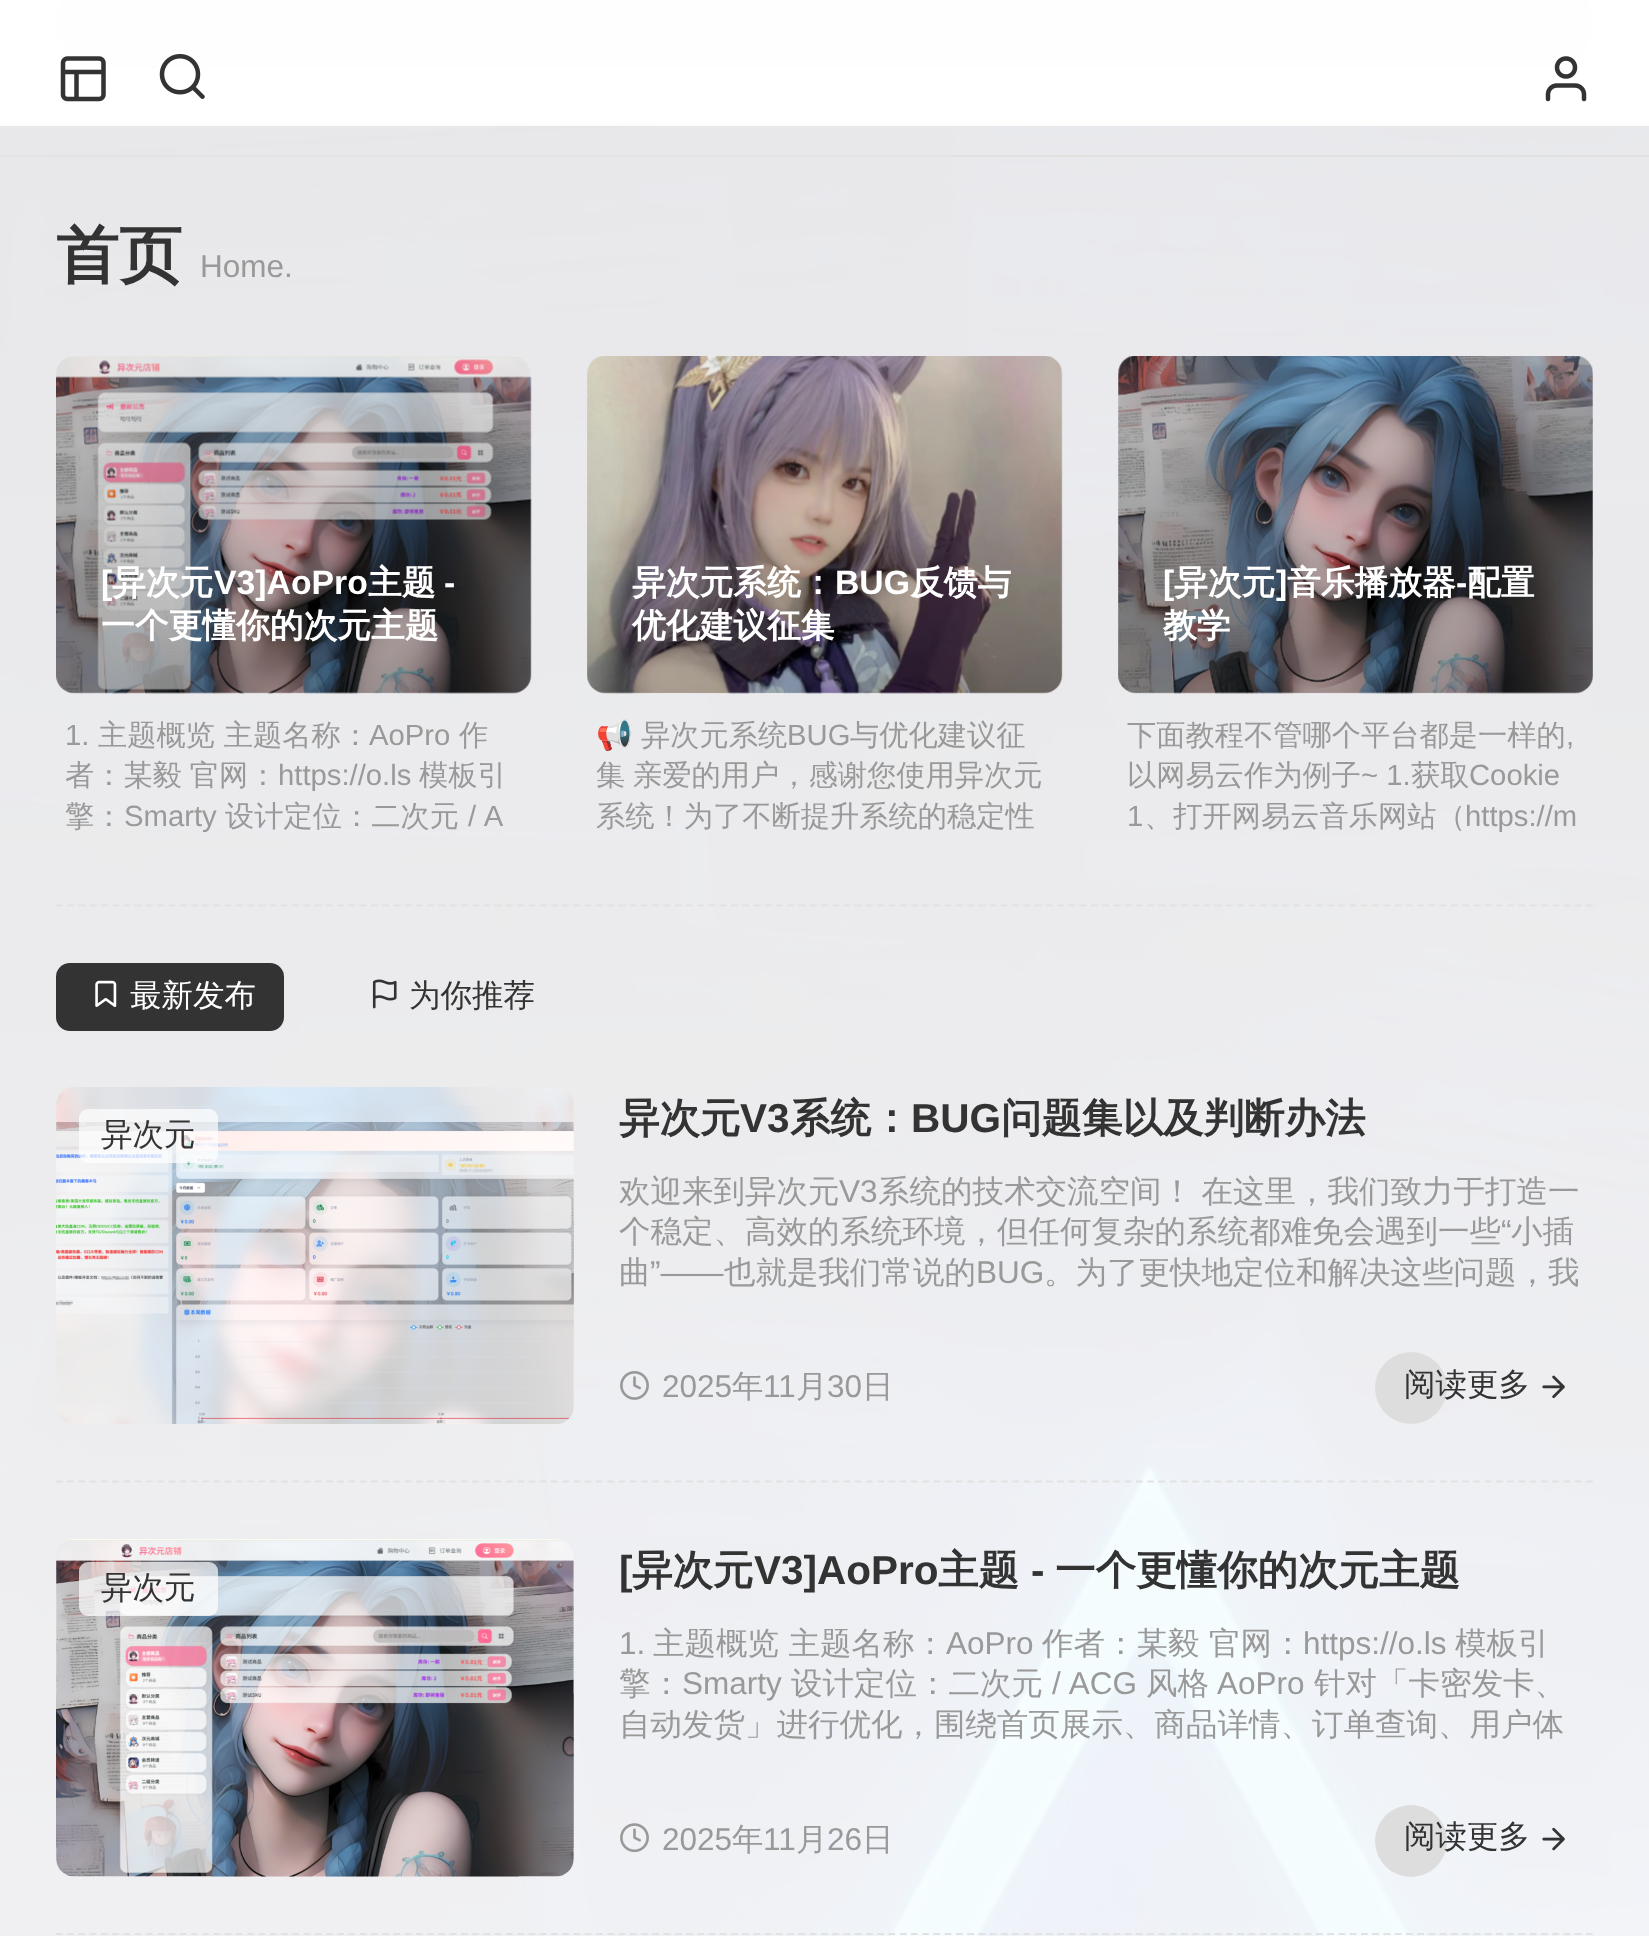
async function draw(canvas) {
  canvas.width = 1649;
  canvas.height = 1936;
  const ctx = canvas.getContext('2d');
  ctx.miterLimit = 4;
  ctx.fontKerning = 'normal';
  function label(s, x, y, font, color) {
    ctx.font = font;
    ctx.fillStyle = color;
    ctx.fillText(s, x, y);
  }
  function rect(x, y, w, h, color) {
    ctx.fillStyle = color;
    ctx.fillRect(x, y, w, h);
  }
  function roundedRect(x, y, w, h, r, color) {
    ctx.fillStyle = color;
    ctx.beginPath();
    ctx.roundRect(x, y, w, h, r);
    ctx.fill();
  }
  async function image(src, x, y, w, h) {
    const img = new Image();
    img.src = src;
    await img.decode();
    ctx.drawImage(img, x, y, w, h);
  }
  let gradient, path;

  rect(0, 0, 1649, 1936, '#fff');
  await image('assets/img1.png', 0, 126, 1649, 1810);
  ctx.fillStyle = '#0000000d';
  ctx.filter = 'blur(11px)';
  ctx.beginPath();
  ctx.rect(0, -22, 1649, 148);
  ctx.fill();
  ctx.filter = 'none';
  rect(0, 0, 1649, 124, '#fff');
  rect(0, 124, 1649, 2, '#e2e2e2');
  roundedRect(56, -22, 1537, 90, 45, '#f3f3f3');
  rect(0, 0, 1649, 158, '#ffffffe6');
  rect(0, 155, 1649, 2, '#e2e2e2');
  await image('assets/img2.png', 60, 56, 46, 46);
  await image('assets/img3.png', 159, 54, 46, 45);
  await image('assets/img4.png', 1545, 56, 42, 46);
  label('首页', 56, 277, 'bold 63px WenQuanYi Zen Hei', '#333');
  label('Home.', 200, 277, '31.5px Liberation Sans', '#999');
  path = new Path2D('M56 905.5H1593');
  ctx.strokeStyle = '#e2e2e2';
  ctx.lineWidth = 2.2;
  ctx.setLineDash([6.75, 4.5]);
  ctx.stroke(path);
  await image('assets/img5.png', 56, 356, 476, 338);
  gradient = ctx.createLinearGradient(294, 693, 294, 356);
  gradient.addColorStop(0, '#0000004d');
  gradient.addColorStop(1, '#0000000d');
  ctx.fillStyle = gradient;
  ctx.beginPath();
  ctx.roundRect(56, 356, 475, 337, 18);
  ctx.fill();
  label('[', 101, 594, 'bold 33.75px Liberation Sans', '#fff');
  label('异次元', 112, 594, 'bold 33.75px WenQuanYi Zen Hei', '#fff');
  label('V3]AoPro', 214, 594, 'bold 33.75px Liberation Sans', '#fff');
  label('主题', 368, 594, 'bold 33.75px WenQuanYi Zen Hei', '#fff');
  label('-', 444, 594, 'bold 33.75px Liberation Sans', '#fff');
  label('一个更懂你的次元主题', 101, 637, 'bold 33.75px WenQuanYi Zen Hei', '#fff');
  label('1.', 65, 745, '29.25px Liberation Sans', '#999');
  label('主题概览 主题名称：', 98, 745, '500 29.25px WenQuanYi Zen Hei', '#999');
  label('AoPro', 369, 745, '29.25px Liberation Sans', '#999');
  label('作', 459, 745, '500 29.25px WenQuanYi Zen Hei', '#999');
  ctx.wordSpacing = '-1px';
  label('者：某毅 官网：', 65, 785, '500 29.25px WenQuanYi Zen Hei', '#999');
  ctx.wordSpacing = '0px';
  label('https://o.ls', 278, 785, '29.25px Liberation Sans', '#999');
  label('模板引', 419, 785, '500 29.25px WenQuanYi Zen Hei', '#999');
  label('擎：', 65, 826, '500 29.25px WenQuanYi Zen Hei', '#999');
  label('Smarty', 124, 826, '29.25px Liberation Sans', '#999');
  label('设计定位：二次元', 225, 826, '500 29.25px WenQuanYi Zen Hei', '#999');
  ctx.wordSpacing = '1px';
  label('/ A', 468, 826, '29.25px Liberation Sans', '#999');
  await image('assets/img6.png', 587, 356, 476, 338);
  gradient = ctx.createLinearGradient(825, 693, 825, 356);
  gradient.addColorStop(0, '#0000004d');
  gradient.addColorStop(1, '#0000000d');
  ctx.fillStyle = gradient;
  ctx.beginPath();
  ctx.roundRect(587, 356, 475, 337, 18);
  ctx.fill();
  ctx.wordSpacing = '0px';
  label('异次元系统：', 632, 594, 'bold 33.75px WenQuanYi Zen Hei', '#fff');
  label('BUG', 835, 594, 'bold 33.75px Liberation Sans', '#fff');
  label('反馈与', 910, 594, 'bold 33.75px WenQuanYi Zen Hei', '#fff');
  label('优化建议征集', 632, 637, 'bold 33.75px WenQuanYi Zen Hei', '#fff');
  label('📢', 596, 745, '29.25px Noto Color Emoji', '#999');
  label('异次元系统', 641, 745, '500 29.25px WenQuanYi Zen Hei', '#999');
  label('BUG', 787, 745, '29.25px Liberation Sans', '#999');
  label('与优化建议征', 850, 745, '500 29.25px WenQuanYi Zen Hei', '#999');
  ctx.wordSpacing = '-1px';
  label('集 亲爱的用户，感谢您使用异次元', 596, 785, '500 29.25px WenQuanYi Zen Hei', '#999');
  ctx.wordSpacing = '0px';
  label('系统！为了不断提升系统的稳定性', 596, 826, '500 29.25px WenQuanYi Zen Hei', '#999');
  await image('assets/img7.png', 1118, 356, 475, 338);
  gradient = ctx.createLinearGradient(1356, 693, 1356, 356);
  gradient.addColorStop(0, '#0000004d');
  gradient.addColorStop(1, '#0000000d');
  ctx.fillStyle = gradient;
  ctx.beginPath();
  ctx.roundRect(1118, 356, 475, 337, 18);
  ctx.fill();
  label('[', 1163, 594, 'bold 33.75px Liberation Sans', '#fff');
  label('异次元', 1174, 594, 'bold 33.75px WenQuanYi Zen Hei', '#fff');
  label(']', 1276, 594, 'bold 33.75px Liberation Sans', '#fff');
  label('音乐播放器', 1287, 594, 'bold 33.75px WenQuanYi Zen Hei', '#fff');
  label('-', 1456, 594, 'bold 33.75px Liberation Sans', '#fff');
  label('配置', 1467, 594, 'bold 33.75px WenQuanYi Zen Hei', '#fff');
  label('教学', 1163, 637, 'bold 33.75px WenQuanYi Zen Hei', '#fff');
  label('下面教程不管哪个平台都是一样的', 1127, 745, '500 29.25px WenQuanYi Zen Hei', '#999');
  label(',', 1566, 745, '29.25px Liberation Sans', '#999');
  label('以网易云作为例子', 1127, 785, '500 29.25px WenQuanYi Zen Hei', '#999');
  label('~ 1.', 1361, 785, '29.25px Liberation Sans', '#999');
  label('获取', 1411, 785, '500 29.25px WenQuanYi Zen Hei', '#999');
  label('Cookie', 1469, 785, '29.25px Liberation Sans', '#999');
  label('1', 1127, 826, '29.25px Liberation Sans', '#999');
  label('、打开网易云音乐网站（', 1144, 826, '500 29.25px WenQuanYi Zen Hei', '#999');
  label('https://m', 1465, 826, '29.25px Liberation Sans', '#999');
  roundedRect(56, 963, 228, 68, 14, '#333');
  await image('assets/img8.png', 95, 980, 22, 27);
  label('最新发布', 130, 1006, '500 31.5px WenQuanYi Zen Hei', '#fff');
  await image('assets/img9.png', 372, 979, 25, 30);
  label('为你推荐', 409, 1006, '500 31.5px WenQuanYi Zen Hei', '#333');
  path = new Path2D('M56 1481.5H1593');
  ctx.stroke(path);
  await image('assets/img10.png', 56, 1087, 518, 337);
  roundedRect(79, 1109, 139, 54, 9, '#ffffffb3');
  label('异次元', 101, 1145, '500 31.5px WenQuanYi Zen Hei', '#333');
  label('异次元', 619, 1132, 'bold 40.5px WenQuanYi Zen Hei', '#333');
  label('V3', 740, 1132, 'bold 40.5px Liberation Sans', '#333');
  label('系统：', 790, 1132, 'bold 40.5px WenQuanYi Zen Hei', '#333');
  label('BUG', 911, 1132, 'bold 40.5px Liberation Sans', '#333');
  label('问题集以及判断办法', 1001, 1132, 'bold 40.5px WenQuanYi Zen Hei', '#333');
  label('欢迎来到异次元', 619, 1202, '500 31.5px WenQuanYi Zen Hei', '#999');
  label('V3', 839, 1202, '31.5px Liberation Sans', '#999');
  ctx.wordSpacing = '-1px';
  label('系统的技术交流空间！ 在这里，我们致力于打造一', 878, 1202, '500 31.5px WenQuanYi Zen Hei', '#999');
  ctx.wordSpacing = '0px';
  label('个稳定、高效的系统环境，但任何复杂的系统都难免会遇到一些', 619, 1242, '500 31.5px WenQuanYi Zen Hei', '#999');
  label('“', 1501, 1242, '31.5px Liberation Sans', '#999');
  label('小插', 1511, 1242, '500 31.5px WenQuanYi Zen Hei', '#999');
  label('曲', 619, 1283, '500 31.5px WenQuanYi Zen Hei', '#999');
  label('”——', 650, 1283, '31.5px Liberation Sans', '#999');
  label('也就是我们常说的', 724, 1283, '500 31.5px WenQuanYi Zen Hei', '#999');
  label('BUG', 976, 1283, '31.5px Liberation Sans', '#999');
  label('。为了更快地定位和解决这些问题，我', 1044, 1283, '500 31.5px WenQuanYi Zen Hei', '#999');
  await image('assets/img11.png', 620, 1371, 29, 29);
  label('2025', 662, 1397, '31.5px Liberation Sans', '#999');
  label('年', 732, 1397, '500 31.5px WenQuanYi Zen Hei', '#999');
  label('11', 763, 1397, '31.5px Liberation Sans', '#999');
  label('月', 796, 1397, '500 31.5px WenQuanYi Zen Hei', '#999');
  label('30', 827, 1397, '31.5px Liberation Sans', '#999');
  label('日', 862, 1397, '500 31.5px WenQuanYi Zen Hei', '#999');
  ctx.fillStyle = '#ddd';
  ctx.beginPath();
  ctx.arc(1411, 1388, 36, 0, 2 * Math.PI);
  ctx.fill();
  label('阅读更多', 1404, 1395, '500 31.5px WenQuanYi Zen Hei', '#333');
  await image('assets/img12.png', 1542, 1375, 23, 24);
  path = new Path2D('M56 1934H1593');
  ctx.stroke(path);
  await image('assets/img13.png', 56, 1539, 518, 338);
  roundedRect(79, 1562, 139, 54, 9, '#ffffffb3');
  label('异次元', 101, 1598, '500 31.5px WenQuanYi Zen Hei', '#333');
  label('[', 619, 1584, 'bold 40.5px Liberation Sans', '#333');
  label('异次元', 632, 1584, 'bold 40.5px WenQuanYi Zen Hei', '#333');
  label('V3]AoPro', 754, 1584, 'bold 40.5px Liberation Sans', '#333');
  label('主题', 938, 1584, 'bold 40.5px WenQuanYi Zen Hei', '#333');
  label('-', 1031, 1584, 'bold 40.5px Liberation Sans', '#333');
  label('一个更懂你的次元主题', 1055, 1584, 'bold 40.5px WenQuanYi Zen Hei', '#333');
  label('1.', 619, 1654, '31.5px Liberation Sans', '#999');
  label('主题概览 主题名称：', 653, 1654, '500 31.5px WenQuanYi Zen Hei', '#999');
  label('AoPro', 946, 1654, '31.5px Liberation Sans', '#999');
  label('作者：某毅 官网：', 1042, 1654, '500 31.5px WenQuanYi Zen Hei', '#999');
  label('https://o.ls', 1303, 1654, '31.5px Liberation Sans', '#999');
  label('模板引', 1455, 1654, '500 31.5px WenQuanYi Zen Hei', '#999');
  label('擎：', 619, 1694, '500 31.5px WenQuanYi Zen Hei', '#999');
  label('Smarty', 682, 1694, '31.5px Liberation Sans', '#999');
  label('设计定位：二次元', 791, 1694, '500 31.5px WenQuanYi Zen Hei', '#999');
  ctx.wordSpacing = '1px';
  label('/ ACG', 1052, 1694, '31.5px Liberation Sans', '#999');
  ctx.wordSpacing = '0px';
  label('风格', 1146, 1694, '500 31.5px WenQuanYi Zen Hei', '#999');
  label('AoPro', 1217, 1694, '31.5px Liberation Sans', '#999');
  label('针对「卡密发卡、', 1314, 1694, '500 31.5px WenQuanYi Zen Hei', '#999');
  label('自动发货」进行优化，围绕首页展示、商品详情、订单查询、用户体', 619, 1735, '500 31.5px WenQuanYi Zen Hei', '#999');
  await image('assets/img14.png', 620, 1823, 29, 30);
  label('2025', 662, 1850, '31.5px Liberation Sans', '#999');
  label('年', 732, 1850, '500 31.5px WenQuanYi Zen Hei', '#999');
  label('11', 763, 1850, '31.5px Liberation Sans', '#999');
  label('月', 796, 1850, '500 31.5px WenQuanYi Zen Hei', '#999');
  label('26', 827, 1850, '31.5px Liberation Sans', '#999');
  label('日', 862, 1850, '500 31.5px WenQuanYi Zen Hei', '#999');
  ctx.fillStyle = '#ddd';
  ctx.beginPath();
  ctx.arc(1411, 1841, 36, 0, 2 * Math.PI);
  ctx.fill();
  label('阅读更多', 1404, 1847, '500 31.5px WenQuanYi Zen Hei', '#333');
  await image('assets/img15.png', 1542, 1827, 23, 24);
}

draw(document.querySelector('canvas'));
